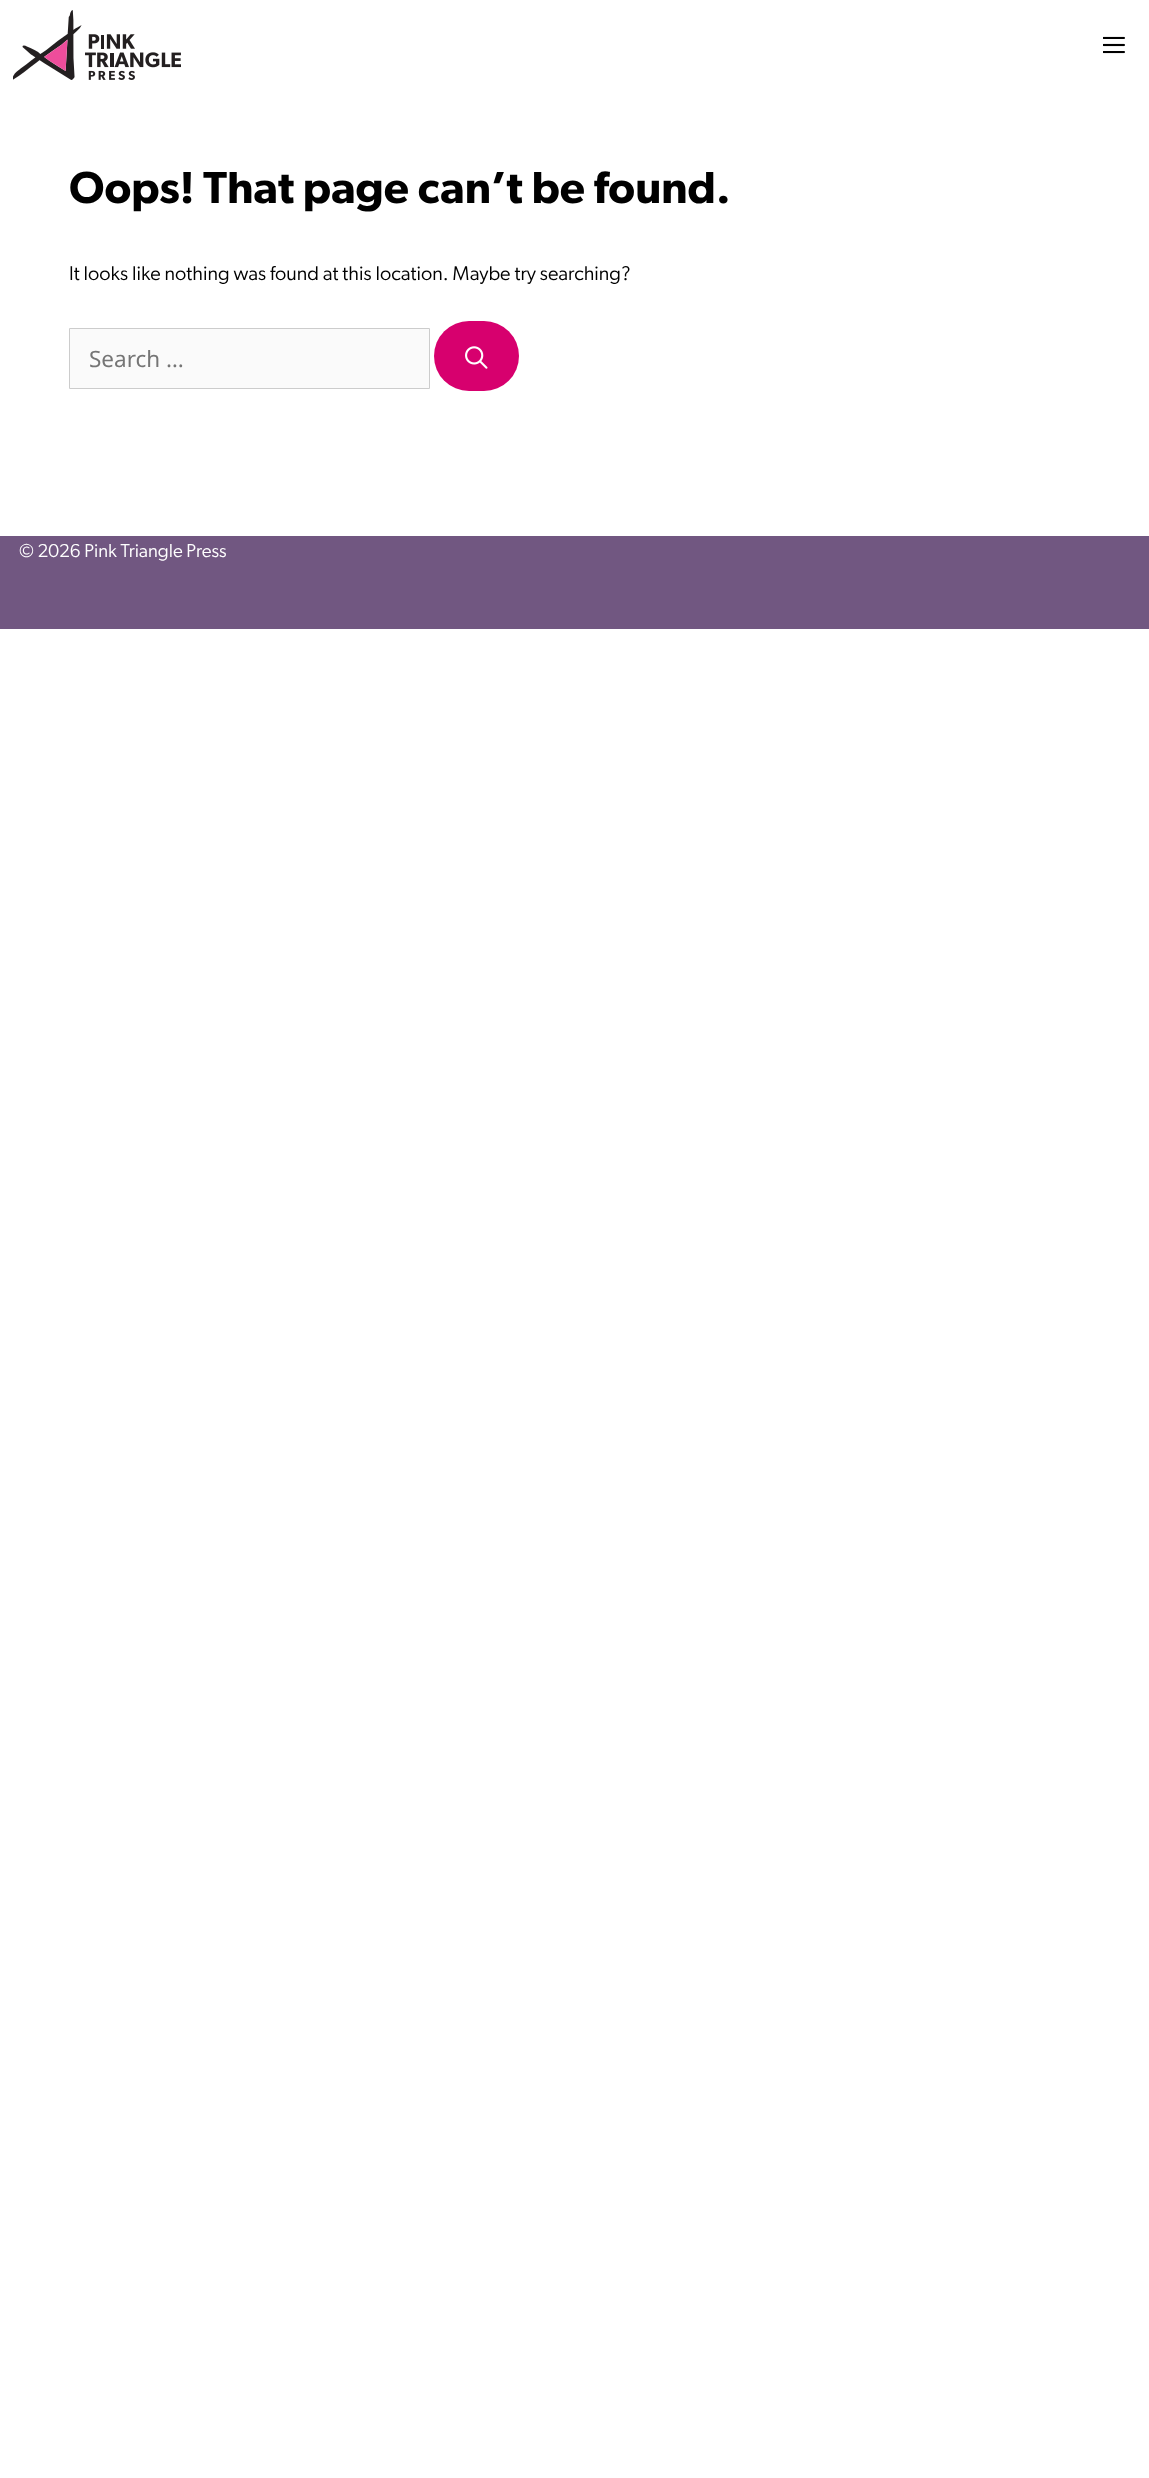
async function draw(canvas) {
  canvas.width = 1149;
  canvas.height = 2478;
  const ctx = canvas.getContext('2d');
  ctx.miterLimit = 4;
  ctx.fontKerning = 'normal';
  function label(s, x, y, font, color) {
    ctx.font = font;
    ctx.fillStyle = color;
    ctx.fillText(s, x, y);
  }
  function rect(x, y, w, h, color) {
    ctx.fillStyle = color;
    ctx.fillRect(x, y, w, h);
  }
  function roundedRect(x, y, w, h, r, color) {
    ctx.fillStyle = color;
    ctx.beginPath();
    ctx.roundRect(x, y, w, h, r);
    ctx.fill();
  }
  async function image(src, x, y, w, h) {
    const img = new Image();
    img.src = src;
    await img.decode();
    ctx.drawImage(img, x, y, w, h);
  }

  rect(0, 0, 1149, 2478, '#fff');
  await image('assets/img1.png', 13, 10, 168, 70);
  await image('assets/img2.png', 1103, 36, 22, 18);
  label('Oops! That page can’t be found.', 69, 203, '600 45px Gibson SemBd', '#000');
  label('It looks like nothing was found at this location. Maybe try searching?', 69, 280, '20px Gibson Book', '#000');
  ctx.fillStyle = '#fafafa';
  ctx.beginPath();
  ctx.rect(69.5, 328.5, 360, 60);
  ctx.fill();
  ctx.strokeStyle = '#ccc';
  ctx.stroke();
  label('Search …', 89, 367, '22.5px Noto Sans', '#757575');
  roundedRect(434, 321, 85, 70, 35, '#d7006e');
  await image('assets/img3.png', 465, 346, 23, 23);
  rect(0, 536, 1149, 93, '#715781');
  label('© 2026 Pink Triangle Press', 19, 557, '18.75px Gibson Book', '#fff');
}

draw(document.querySelector('canvas'));
